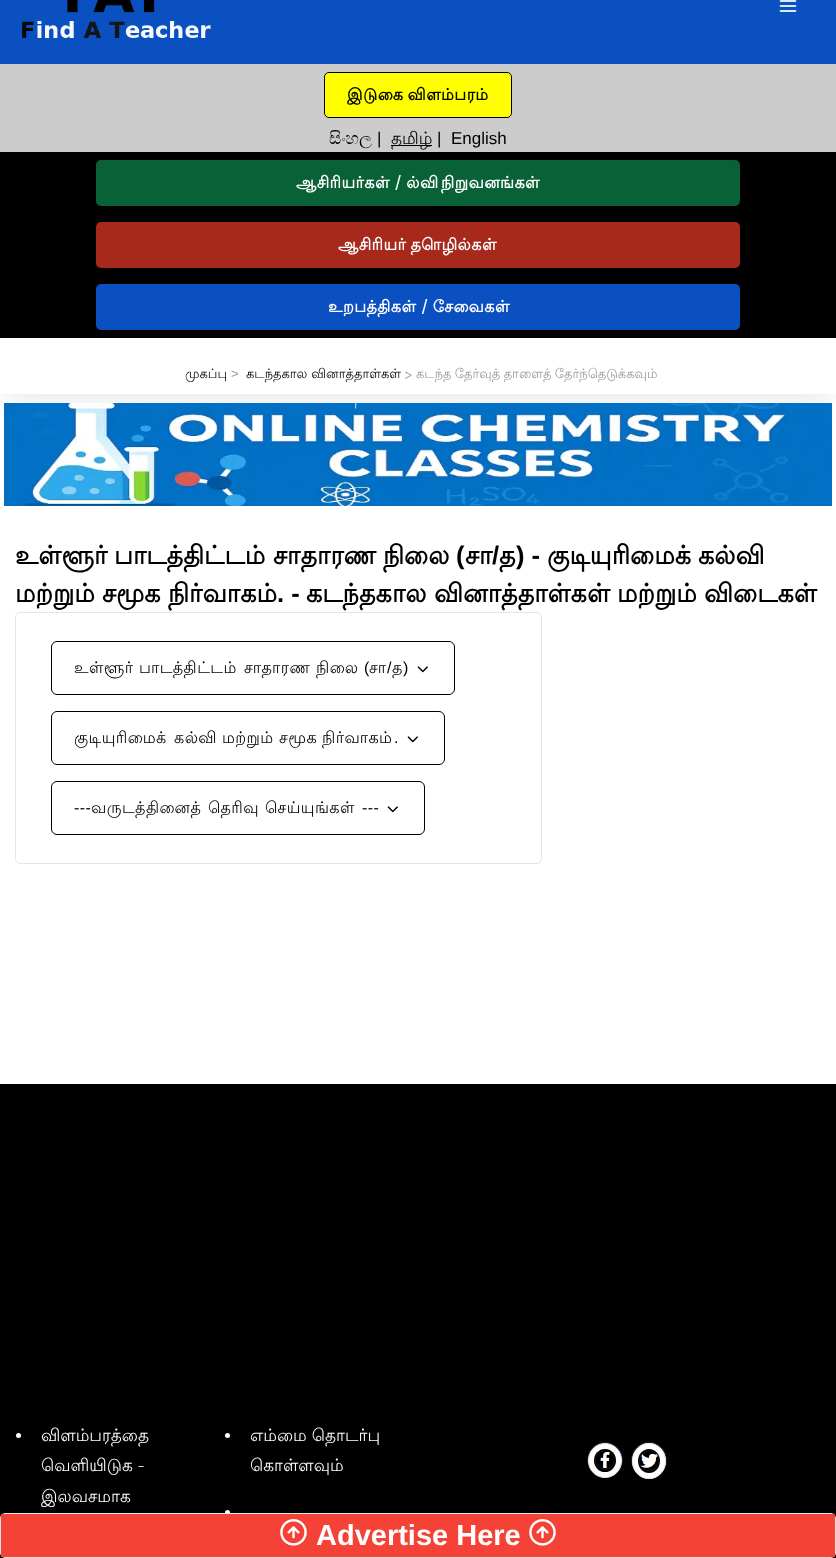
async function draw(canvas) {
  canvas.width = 836;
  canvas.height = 1558;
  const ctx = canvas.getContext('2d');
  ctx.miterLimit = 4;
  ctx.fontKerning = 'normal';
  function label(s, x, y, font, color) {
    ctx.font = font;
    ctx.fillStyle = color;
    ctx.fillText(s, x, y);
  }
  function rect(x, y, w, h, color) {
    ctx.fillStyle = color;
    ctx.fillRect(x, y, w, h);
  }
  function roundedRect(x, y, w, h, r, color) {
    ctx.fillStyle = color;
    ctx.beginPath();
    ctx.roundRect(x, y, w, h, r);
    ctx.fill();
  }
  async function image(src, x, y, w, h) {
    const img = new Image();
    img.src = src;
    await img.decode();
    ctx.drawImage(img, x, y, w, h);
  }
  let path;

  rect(0, 0, 836, 1558, '#fff');
  rect(0, 0, 836, 64, '#0b50c1');
  await image('assets/img1.png', 22, 0, 189, 38);
  await image('assets/img2.png', 779, 0, 18, 12);
  rect(0, 64, 836, 88, '#ccc');
  ctx.fillStyle = '#ff0';
  ctx.beginPath();
  ctx.roundRect(324.5, 72.5, 187, 45, 4.5);
  ctx.fill();
  ctx.strokeStyle = '#000';
  ctx.stroke();
  ctx.letterSpacing = '0.4px';
  ctx.wordSpacing = '-1px';
  label('இடுகை விளம்பரம்', 347, 100, 'bold 16px Lohit Tamil', '#000');
  ctx.letterSpacing = '0px';
  ctx.wordSpacing = '0px';
  label('සිංහල', 329, 144, '17px FreeSerif', '#000');
  label('|', 377, 144, '17px Liberation Sans', '#000');
  rect(391, 145, 41, 1, '#000');
  label('தமிழ்', 391, 144, '17px Lohit Tamil', '#000');
  label('|', 437, 144, '17px Liberation Sans', '#000');
  label('English', 451, 144, '17px Liberation Sans', '#000');
  rect(0, 152, 836, 186, '#000');
  roundedRect(96, 160, 644, 46, 5, '#096237');
  ctx.letterSpacing = '0.4px';
  ctx.wordSpacing = '-1px';
  label('ஆசிரியர்கள் / ல்வி', 296, 188, 'bold 16px Lohit Tamil', '#fff');
  ctx.wordSpacing = '0px';
  label('நிறுவனங்கள்', 441, 188, 'bold 16px Lohit Tamil', '#fff');
  roundedRect(96, 222, 644, 46, 5, '#a6291c');
  ctx.wordSpacing = '-1px';
  label('ஆசிரியர் தொழில்கள்', 338, 250, 'bold 16px Lohit Tamil', '#fff');
  ctx.save();
  path = new Path2D('M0 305H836V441H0ZM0 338H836V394H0Z');
  ctx.clip(path, 'evenodd');
  ctx.fillStyle = '#0000001f';
  ctx.filter = 'blur(15px)';
  ctx.beginPath();
  ctx.rect(6, 351, 824, 44);
  ctx.fill();
  ctx.filter = 'none';
  ctx.restore();
  roundedRect(96, 284, 644, 46, 5, '#0b50c1');
  label('உறபத்திகள் / சேவைகள்', 328, 312, 'bold 16px Lohit Tamil', '#fff');
  ctx.letterSpacing = '0px';
  ctx.wordSpacing = '0px';
  label('முகப்பு', 185, 378, '13px Lohit Tamil', '#000');
  label('>', 231, 378, '13px Liberation Sans', '#999');
  label('கடந்தகால வினாத்தாள்கள்', 246, 378, '13px Lohit Tamil', '#000');
  ctx.wordSpacing = '-0.5px';
  label('> கடந்த தேர்வுத் தாளைத் தேர்ந்தெடுக்கவும்', 404, 378, '13px Lohit Tamil', '#999');
  await image('assets/img3.png', 4, 403, 828, 103);
  ctx.wordSpacing = '0px';
  label('உள்ளூர்', 15, 564, 'bold 25.5px Lohit Tamil', '#000');
  label('பாடத்திட்டம்', 114, 564, 'bold 25.5px Lohit Tamil', '#000');
  label('சாதாரண', 273, 564, 'bold 25.5px Lohit Tamil', '#000');
  label('நிலை', 383, 564, 'bold 25.5px Lohit Tamil', '#000');
  label('(', 456, 564, 'bold 25.5px Liberation Sans', '#000');
  label('சா', 465, 564, 'bold 25.5px Lohit Tamil', '#000');
  label('/', 492, 564, 'bold 25.5px Liberation Sans', '#000');
  label('த', 499, 564, 'bold 25.5px Lohit Tamil', '#000');
  label(') -', 516, 564, 'bold 25.5px Liberation Sans', '#000');
  label('குடியுரிமைக்', 547, 564, 'bold 25.5px Lohit Tamil', '#000');
  label('கல்வி', 698, 564, 'bold 25.5px Lohit Tamil', '#000');
  label('மற்றும்', 15, 602, 'bold 25.5px Lohit Tamil', '#000');
  label('சமூக', 102, 602, 'bold 25.5px Lohit Tamil', '#000');
  label('நிர்வாகம்', 168, 602, 'bold 25.5px Lohit Tamil', '#000');
  label('. -', 277, 602, 'bold 25.5px Liberation Sans', '#000');
  label('கடந்தகால', 306, 602, 'bold 25.5px Lohit Tamil', '#000');
  label('வினாத்தாள்கள்', 434, 602, 'bold 25.5px Lohit Tamil', '#000');
  label('மற்றும்', 617, 602, 'bold 25.5px Lohit Tamil', '#000');
  label('விடைகள்', 704, 602, 'bold 25.5px Lohit Tamil', '#000');
  ctx.beginPath();
  ctx.roundRect(15.5, 612.5, 526, 251, 4.5);
  ctx.strokeStyle = '#e5e5e5';
  ctx.stroke();
  ctx.beginPath();
  ctx.roundRect(51.5, 641.5, 403, 53, 5.5);
  ctx.strokeStyle = '#000';
  ctx.stroke();
  ctx.letterSpacing = '0.4px';
  label('உள்ளூர்', 74, 673, '16px Lohit Tamil', '#000');
  label('பாடத்திட்டம்', 139, 673, '16px Lohit Tamil', '#000');
  label('சாதாரண', 244, 673, '16px Lohit Tamil', '#000');
  label('நிலை', 316, 673, '16px Lohit Tamil', '#000');
  label('(', 364, 673, '16px Liberation Sans', '#000');
  label('சா', 369, 673, '16px Lohit Tamil', '#000');
  label('/', 387, 673, '16px Liberation Sans', '#000');
  label('த', 392, 673, '16px Lohit Tamil', '#000');
  label(')', 403, 673, '16px Liberation Sans', '#000');
  await image('assets/img4.png', 417, 666, 11, 7);
  ctx.beginPath();
  ctx.roundRect(51.5, 711.5, 393, 53, 5.5);
  ctx.stroke();
  label('குடியுரிமைக்', 74, 743, '16px Lohit Tamil', '#000');
  label('கல்வி', 174, 743, '16px Lohit Tamil', '#000');
  label('மற்றும்', 222, 743, '16px Lohit Tamil', '#000');
  label('சமூக', 279, 743, '16px Lohit Tamil', '#000');
  label('நிர்வாகம்', 322, 743, '16px Lohit Tamil', '#000');
  label('.', 394, 743, '16px Liberation Sans', '#000');
  await image('assets/img4.png', 407, 736, 11, 7);
  ctx.beginPath();
  ctx.roundRect(51.5, 781.5, 373, 53, 5.5);
  ctx.stroke();
  label('---', 74, 813, '16px Liberation Sans', '#000');
  label('வருடத்தினைத்', 91, 813, '16px Lohit Tamil', '#000');
  label('தெரிவு', 208, 813, '16px Lohit Tamil', '#000');
  label('செய்யுங்கள்', 265, 813, '16px Lohit Tamil', '#000');
  label('---', 362, 813, '16px Liberation Sans', '#000');
  await image('assets/img4.png', 387, 806, 11, 7);
  rect(0, 1084, 836, 474, '#000');
  ctx.fillStyle = '#fff';
  ctx.beginPath();
  ctx.arc(18.5, 1435.5, 2.5, 0, 2 * Math.PI);
  ctx.fill();
  ctx.letterSpacing = '0px';
  label('விளம்பரத்தை', 41, 1441, '17px Lohit Tamil', '#fff');
  ctx.wordSpacing = '-1px';
  label('வெளியிடுக -', 41, 1471, '17px Lohit Tamil', '#fff');
  ctx.wordSpacing = '0px';
  label('இலவசமாக', 41, 1502, '17px Lohit Tamil', '#fff');
  ctx.beginPath();
  ctx.arc(227.5, 1435.5, 2.5, 0, 2 * Math.PI);
  ctx.fill();
  label('எம்மை தொடர்பு', 250, 1441, '17px Lohit Tamil', '#fff');
  label('கொள்ளவும்', 250, 1471, '17px Lohit Tamil', '#fff');
  ctx.beginPath();
  ctx.arc(227.5, 1512.5, 2.5, 0, 2 * Math.PI);
  ctx.fill();
  ctx.beginPath();
  ctx.arc(605, 1460, 17.5, 0, 2 * Math.PI);
  ctx.strokeStyle = '#212121';
  ctx.stroke();
  ctx.beginPath();
  ctx.roundRect(588.5, 1443.5, 33, 34, 16.5);
  ctx.fill();
  ctx.strokeStyle = '#e5e5e5';
  ctx.stroke();
  await image('assets/img5.png', 594, 1449, 22, 23);
  ctx.beginPath();
  ctx.arc(649, 1460, 17.5, 0, 2 * Math.PI);
  ctx.strokeStyle = '#212121';
  ctx.stroke();
  ctx.beginPath();
  ctx.ellipse(649, 1461, 17, 18, 0, 0, 2 * Math.PI);
  ctx.fill();
  path = new Path2D('M649 1443.5C658 1443.5 665.5 1451.5 665.5 1461C665.5 1470.5 658 1478.5 649 1478.5C640 1478.5 632.5 1470.5 632.5 1461C632.5 1451.5 640 1443.5 649 1443.5Z');
  ctx.strokeStyle = '#e5e5e5';
  ctx.stroke(path);
  await image('assets/img6.png', 638, 1449, 22, 24);
  ctx.beginPath();
  ctx.roundRect(0.5, 1513.5, 835, 44, 4.5);
  ctx.stroke();
  rect(1, 1514, 834, 43, '#f44336');
  await image('assets/img7.png', 280, 1519, 27, 27);
  label('Advertise Here', 316, 1545, 'bold 29px Liberation Sans', '#fff');
  await image('assets/img7.png', 529, 1519, 27, 27);
}

draw(document.querySelector('canvas'));
